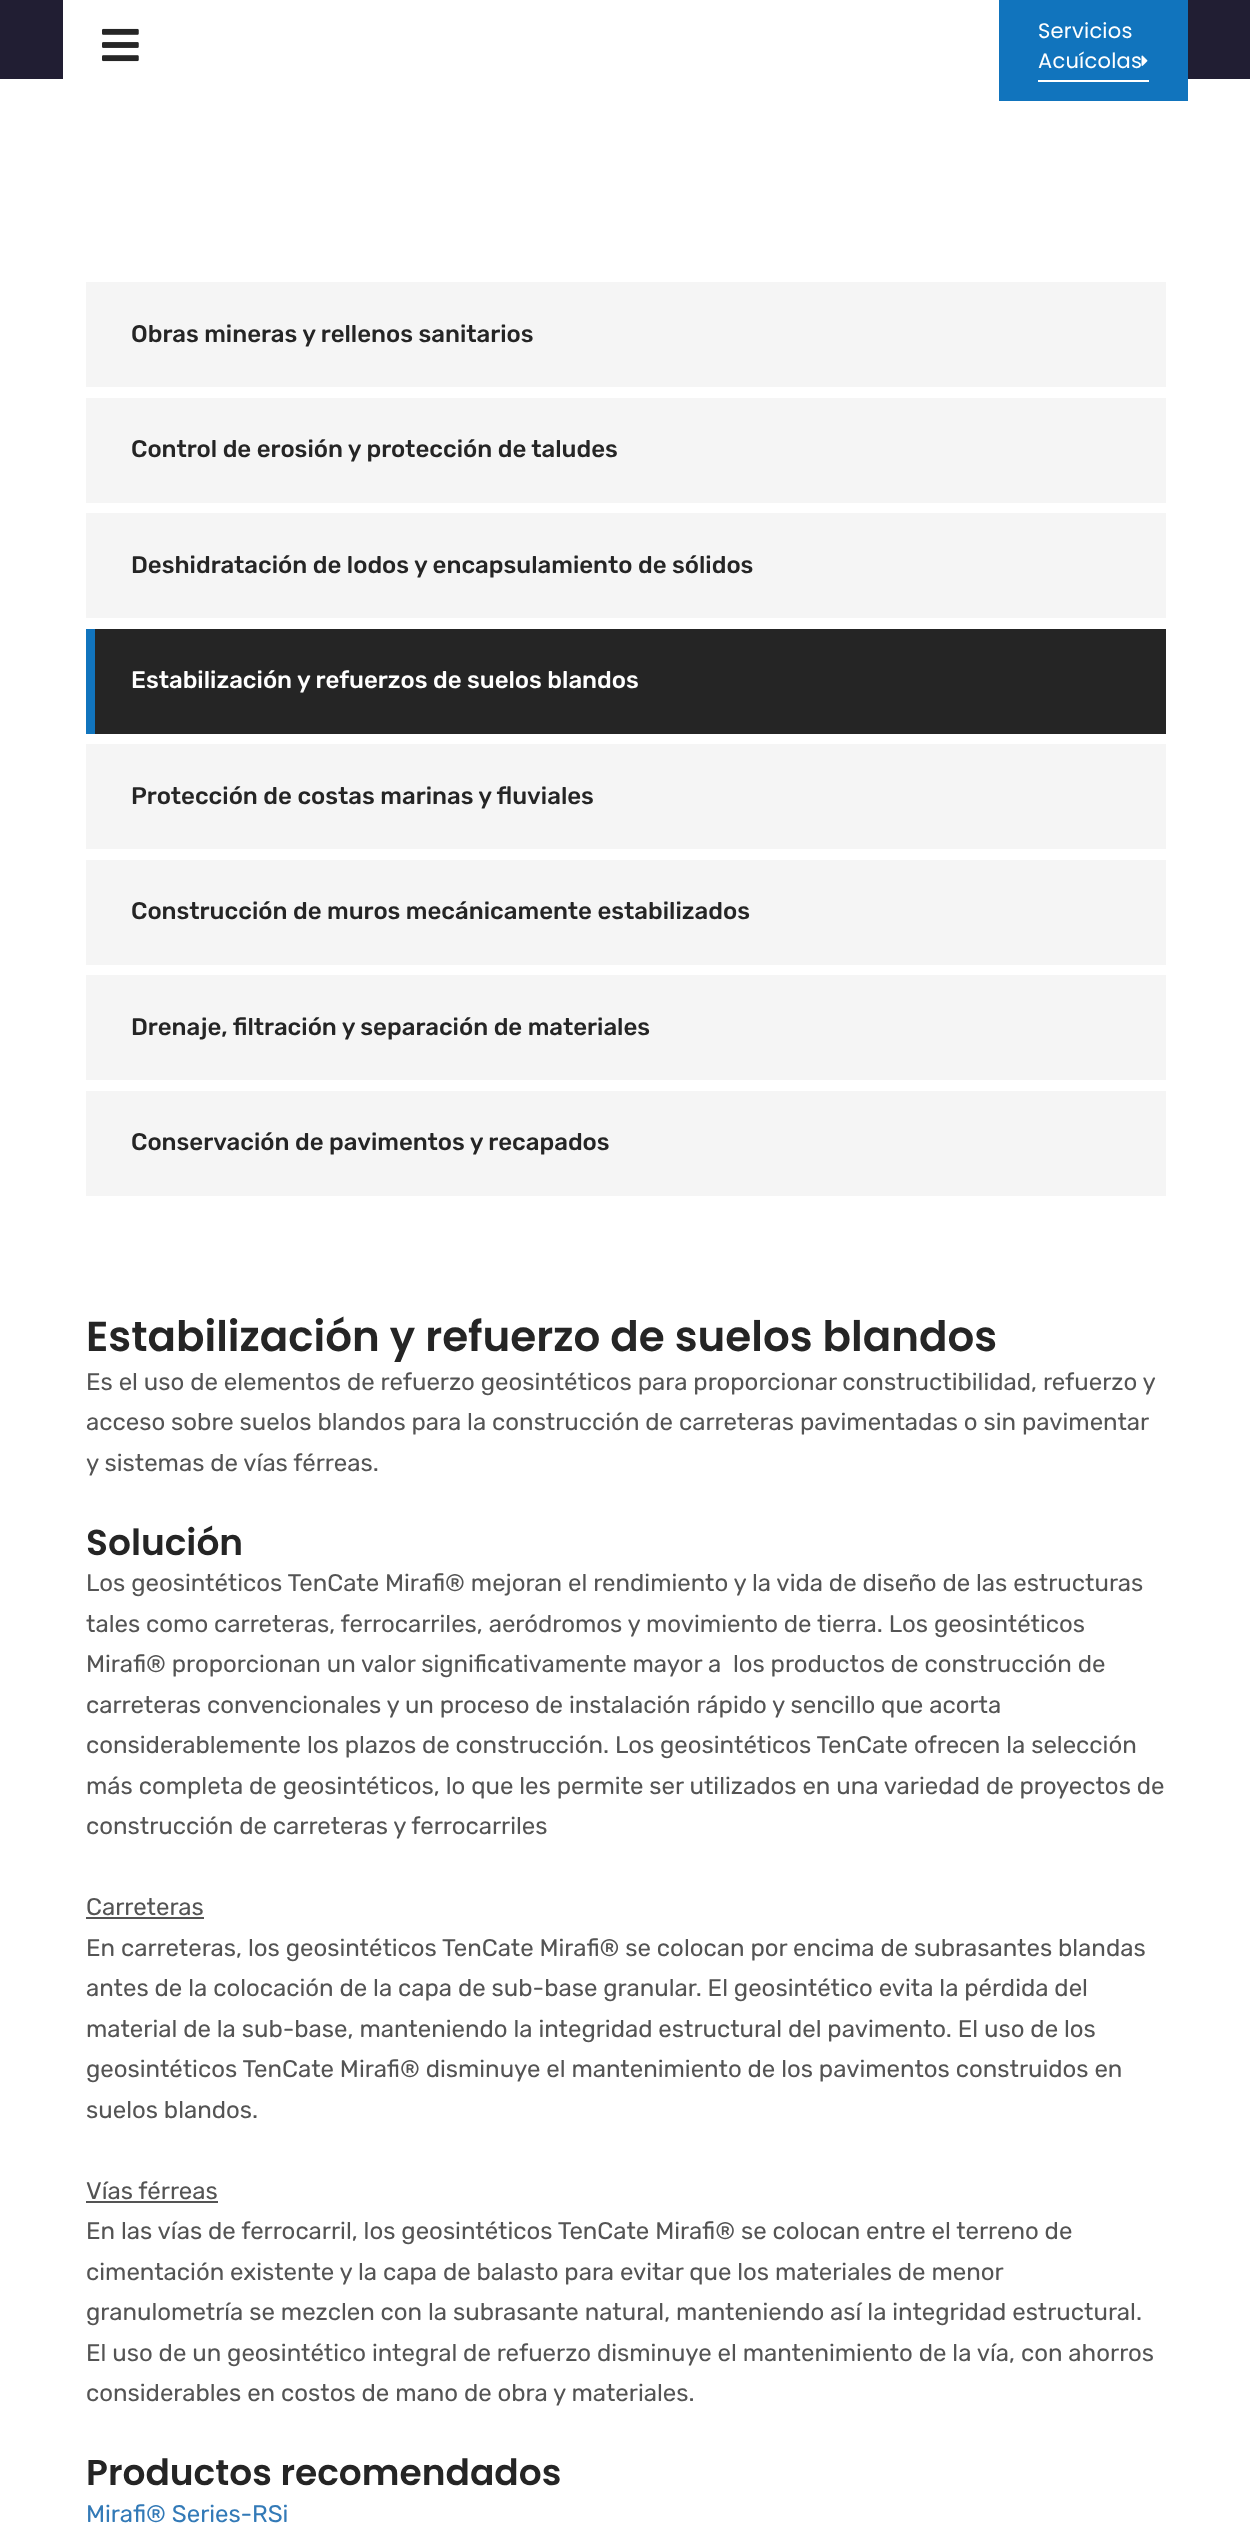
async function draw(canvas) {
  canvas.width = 1250;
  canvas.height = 2532;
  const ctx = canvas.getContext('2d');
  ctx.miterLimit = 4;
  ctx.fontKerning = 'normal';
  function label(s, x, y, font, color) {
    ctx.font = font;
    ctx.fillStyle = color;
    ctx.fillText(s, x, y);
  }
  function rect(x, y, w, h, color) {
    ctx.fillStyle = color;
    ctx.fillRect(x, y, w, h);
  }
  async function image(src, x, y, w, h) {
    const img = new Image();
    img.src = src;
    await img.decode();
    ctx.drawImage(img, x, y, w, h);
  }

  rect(0, 0, 1250, 2532, '#fff');
  rect(0, 0, 1250, 79, '#211e33');
  rect(63, 0, 936, 79, '#fff');
  await image('assets/img1.png', 102, 28, 37, 34);
  rect(999, 0, 189, 101, '#1174bd');
  rect(1038, 80, 111, 2, '#fff');
  ctx.letterSpacing = '0.25px';
  label('Servicios', 1038, 38, '21px Poppins', '#fff');
  label('Acuícolas', 1038, 68, '21px Poppins', '#fff');
  await image('assets/img2.png', 1141, 55, 7, 11);
  rect(86, 282, 1080, 105, '#f5f5f5');
  ctx.letterSpacing = '0px';
  label('Obras mineras y rellenos sanitarios', 131, 342, '500 24px Rubik', '#252525');
  rect(86, 398, 1080, 105, '#f5f5f5');
  label('Control de erosión y protección de taludes', 131, 457, '500 24px Rubik', '#252525');
  rect(86, 513, 1080, 105, '#f5f5f5');
  label('Deshidratación de lodos y encapsulamiento de sólidos', 131, 573, '500 24px Rubik', '#252525');
  rect(95, 629, 1071, 105, '#252525');
  rect(86, 629, 9, 105, '#1174bd');
  label('Estabilización y refuerzos de suelos blandos', 131, 688, '500 24px Rubik', '#fff');
  rect(86, 744, 1080, 105, '#f5f5f5');
  label('Protección de costas marinas y fluviales', 131, 804, '500 24px Rubik', '#252525');
  rect(86, 860, 1080, 105, '#f5f5f5');
  label('Construcción de muros mecánicamente estabilizados', 131, 919, '500 24px Rubik', '#252525');
  rect(86, 975, 1080, 105, '#f5f5f5');
  label('Drenaje, filtración y separación de materiales', 131, 1035, '500 24px Rubik', '#252525');
  rect(86, 1091, 1080, 105, '#f5f5f5');
  label('Conservación de pavimentos y recapados', 131, 1150, '500 24px Rubik', '#252525');
  label('Estabilización y refuerzo de suelos blandos', 86, 1351, '600 42px Poppins', '#252525');
  label('Es el uso de elementos de refuerzo geosintéticos para proporcionar constructibilidad, refuerzo y', 86, 1390, '24px Rubik', '#545454');
  label('acceso sobre suelos blandos para la construcción de carreteras pavimentadas o sin pavimentar', 86, 1430, '24px Rubik', '#545454');
  label('y sistemas de vías férreas.', 86, 1471, '24px Rubik', '#545454');
  label('Solución', 86, 1555, '600 36px Poppins', '#252525');
  label('Los geosintéticos TenCate Mirafi® mejoran el rendimiento y la vida de diseño de las estructuras', 86, 1591, '24px Rubik', '#545454');
  label('tales como carreteras, ferrocarriles, aeródromos y movimiento de tierra. Los geosintéticos', 86, 1632, '24px Rubik', '#545454');
  label('Mirafi® proporcionan un valor significativamente mayor a  los productos de construcción de', 86, 1672, '24px Rubik', '#545454');
  label('carreteras convencionales y un proceso de instalación rápido y sencillo que acorta', 86, 1713, '24px Rubik', '#545454');
  label('considerablemente los plazos de construcción. Los geosintéticos TenCate ofrecen la selección', 86, 1753, '24px Rubik', '#545454');
  label('más completa de geosintéticos, lo que les permite ser utilizados en una variedad de proyectos de', 86, 1794, '24px Rubik', '#545454');
  label('construcción de carreteras y ferrocarriles', 86, 1834, '24px Rubik', '#545454');
  label('Carreteras', 86, 1915, '24px Rubik', '#545454');
  rect(86, 1917, 118, 2, '#545454');
  label('En carreteras, los geosintéticos TenCate Mirafi® se colocan por encima de subrasantes blandas', 86, 1956, '24px Rubik', '#545454');
  label('antes de la colocación de la capa de sub-base granular. El geosintético evita la pérdida del', 86, 1996, '24px Rubik', '#545454');
  label('material de la sub-base, manteniendo la integridad estructural del pavimento. El uso de los', 86, 2037, '24px Rubik', '#545454');
  label('geosintéticos TenCate Mirafi® disminuye el mantenimiento de los pavimentos construidos en', 86, 2077, '24px Rubik', '#545454');
  label('suelos blandos.', 86, 2118, '24px Rubik', '#545454');
  label('Vías férreas', 86, 2199, '24px Rubik', '#545454');
  rect(86, 2201, 132, 2, '#545454');
  label('En las vías de ferrocarril, los geosintéticos TenCate Mirafi® se colocan entre el terreno de', 86, 2239, '24px Rubik', '#545454');
  label('cimentación existente y la capa de balasto para evitar que los materiales de menor', 86, 2280, '24px Rubik', '#545454');
  label('granulometría se mezclen con la subrasante natural, manteniendo así la integridad estructural.', 86, 2320, '24px Rubik', '#545454');
  label('El uso de un geosintético integral de refuerzo disminuye el mantenimiento de la vía, con ahorros', 86, 2361, '24px Rubik', '#545454');
  label('considerables en costos de mano de obra y materiales.', 86, 2401, '24px Rubik', '#545454');
  label('Productos recomendados', 86, 2485, '600 36px Poppins', '#252525');
  label('Mirafi® Series-RSi', 86, 2522, '24px Rubik', '#337ab7');
}

draw(document.querySelector('canvas'));
